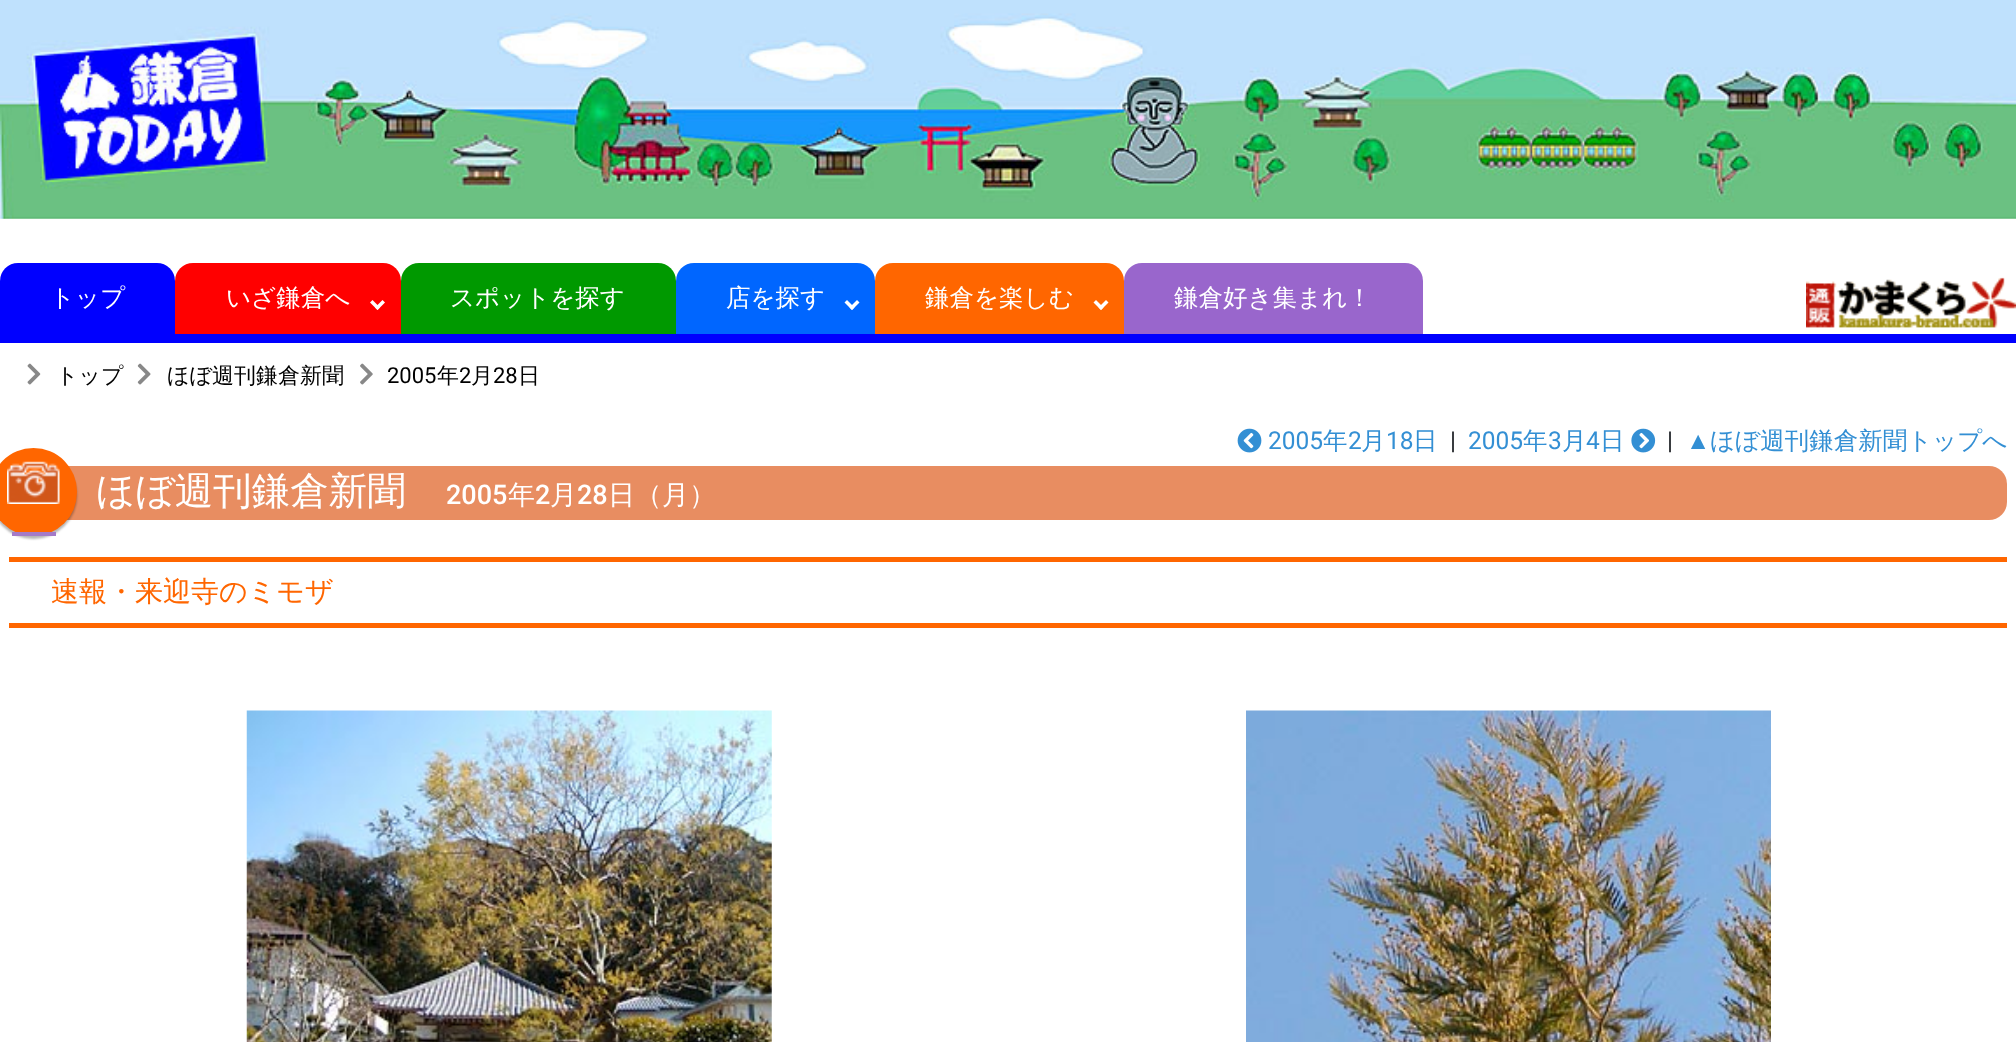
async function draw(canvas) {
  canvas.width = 2016;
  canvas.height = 1042;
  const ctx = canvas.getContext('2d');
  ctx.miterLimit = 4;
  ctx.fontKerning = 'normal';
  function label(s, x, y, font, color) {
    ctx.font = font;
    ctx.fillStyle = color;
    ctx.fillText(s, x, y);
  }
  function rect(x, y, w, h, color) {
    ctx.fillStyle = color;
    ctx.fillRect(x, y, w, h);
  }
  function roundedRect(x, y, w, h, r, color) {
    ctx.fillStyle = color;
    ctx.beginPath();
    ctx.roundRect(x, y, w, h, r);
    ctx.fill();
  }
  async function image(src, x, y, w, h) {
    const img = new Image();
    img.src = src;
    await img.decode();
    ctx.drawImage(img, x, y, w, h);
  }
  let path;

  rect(0, 0, 2016, 1042, '#fff');
  await image('assets/img1.png', 0, 0, 2016, 219);
  rect(0, 334, 2016, 9, '#00f');
  ctx.beginPath();
  ctx.roundRect(0, 263, 175, 71, [18, 18, 0, 0]);
  ctx.fill();
  label('トップ', 50, 306, '500 24.5px WenQuanYi Zen Hei', '#fff');
  ctx.fillStyle = '#f00';
  ctx.beginPath();
  ctx.roundRect(175, 263, 226, 71, [18, 18, 0, 0]);
  ctx.fill();
  label('いざ鎌倉へ', 226, 306, '500 24.5px WenQuanYi Zen Hei', '#fff');
  path = new Path2D('M385 302.5L377.5 310L375 307.5L382.5 300Z');
  ctx.fill(path);
  path = new Path2D('M380 307.5L377.5 310L370 302.5L372.5 300Z');
  ctx.fill(path);
  ctx.fillStyle = '#090';
  ctx.beginPath();
  ctx.roundRect(401, 263, 275, 71, [18, 18, 0, 0]);
  ctx.fill();
  label('スポットを探す', 450, 306, '500 24.5px WenQuanYi Zen Hei', '#fff');
  ctx.fillStyle = '#06f';
  ctx.beginPath();
  ctx.roundRect(676, 263, 199, 71, [18, 18, 0, 0]);
  ctx.fill();
  label('店を探す', 726, 306, '500 24.5px WenQuanYi Zen Hei', '#fff');
  path = new Path2D('M859.5 302.5L852 310L849.5 307.5L857 300Z');
  ctx.fill(path);
  path = new Path2D('M854.5 307.5L852 310L844.5 302.5L847 300Z');
  ctx.fill(path);
  ctx.fillStyle = '#f60';
  ctx.beginPath();
  ctx.roundRect(875, 263, 249, 71, [18, 18, 0, 0]);
  ctx.fill();
  label('鎌倉を楽しむ', 925, 306, '500 24.5px WenQuanYi Zen Hei', '#fff');
  path = new Path2D('M1108.5 302.5L1101 310L1098.5 307.5L1106 300Z');
  ctx.fill(path);
  path = new Path2D('M1103.5 307.5L1101 310L1093.5 302.5L1096 300Z');
  ctx.fill(path);
  ctx.fillStyle = '#96c';
  ctx.beginPath();
  ctx.roundRect(1124, 263, 299, 71, [18, 18, 0, 0]);
  ctx.fill();
  label('鎌倉好き集まれ！', 1174, 306, '500 24.5px WenQuanYi Zen Hei', '#fff');
  await image('assets/img2.png', 1806, 277, 210, 51);
  await image('assets/img3.png', 27, 363, 14, 22);
  label('トップ', 56, 383, '500 22px WenQuanYi Zen Hei', '#000');
  await image('assets/img4.png', 137, 363, 14, 22);
  label('ほぼ週刊鎌倉新聞', 167, 383, '500 22px WenQuanYi Zen Hei', '#000');
  await image('assets/img5.png', 360, 363, 13, 22);
  label('2005', 387, 383, '22px Roboto', '#000');
  label('年', 437, 383, '500 22px WenQuanYi Zen Hei', '#000');
  label('2', 459, 383, '22px Roboto', '#000');
  label('月', 471, 383, '500 22px WenQuanYi Zen Hei', '#000');
  label('28', 493, 383, '22px Roboto', '#000');
  label('日', 518, 383, '500 22px WenQuanYi Zen Hei', '#000');
  await image('assets/img6.png', 1237, 428, 25, 25);
  label('2005', 1268, 449, '24.5px Roboto', '#338fd4');
  label('年', 1323, 449, '500 24.5px WenQuanYi Zen Hei', '#338fd4');
  label('2', 1348, 449, '24.5px Roboto', '#338fd4');
  label('月', 1361, 449, '500 24.5px WenQuanYi Zen Hei', '#338fd4');
  label('18', 1386, 449, '24.5px Roboto', '#338fd4');
  label('日', 1413, 449, '500 24.5px WenQuanYi Zen Hei', '#338fd4');
  label('|', 1450, 449, '24.5px Roboto', '#212529');
  label('2005', 1468, 449, '24.5px Roboto', '#338fd4');
  label('年', 1523, 449, '500 24.5px WenQuanYi Zen Hei', '#338fd4');
  label('3', 1548, 449, '24.5px Roboto', '#338fd4');
  label('月', 1562, 449, '500 24.5px WenQuanYi Zen Hei', '#338fd4');
  label('4', 1586, 449, '24.5px Roboto', '#338fd4');
  label('日', 1600, 449, '500 24.5px WenQuanYi Zen Hei', '#338fd4');
  await image('assets/img7.png', 1631, 428, 25, 25);
  label('|', 1667, 449, '24.5px Roboto', '#212529');
  label('▲', 1686, 449, '24.5px Liberation Sans', '#338fd4');
  label('ほぼ週刊鎌倉新聞トップへ', 1710, 449, '500 24.5px WenQuanYi Zen Hei', '#338fd4');
  ctx.fillStyle = '#e88d61';
  ctx.beginPath();
  ctx.roundRect(9, 466, 1998, 54, [0, 18, 18, 0]);
  ctx.fill();
  ctx.fillStyle = '#0000004a';
  ctx.filter = 'blur(1px)';
  ctx.beginPath();
  ctx.roundRect(-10, 452, 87, 87, 43.5);
  ctx.fill();
  ctx.filter = 'none';
  roundedRect(-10, 448, 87, 88, 43.5, '#f60');
  rect(12, 532, 44, 4, '#a47bc8');
  await image('assets/img8.png', 7, 461, 53, 43);
  label('ほぼ週刊鎌倉新聞', 96, 504, '500 38.5px WenQuanYi Zen Hei', '#fff');
  label('2005', 446, 504, '500 27px Roboto', '#fff');
  label('年', 508, 504, '500 27px WenQuanYi Zen Hei', '#fff');
  label('2', 535, 504, '500 27px Roboto', '#fff');
  label('月', 550, 504, '500 27px WenQuanYi Zen Hei', '#fff');
  label('28', 577, 504, '500 27px Roboto', '#fff');
  label('日（月）', 608, 504, '500 27px WenQuanYi Zen Hei', '#fff');
  rect(9, 557, 1998, 5, '#f60');
  rect(9, 623, 1998, 5, '#f60');
  label('速報・来迎寺のミモザ', 51, 601, '500 28px WenQuanYi Zen Hei', '#f60');
  await image('assets/img9.png', 246, 710, 526, 332);
  await image('assets/img10.png', 1246, 710, 525, 332);
}

draw(document.querySelector('canvas'));
